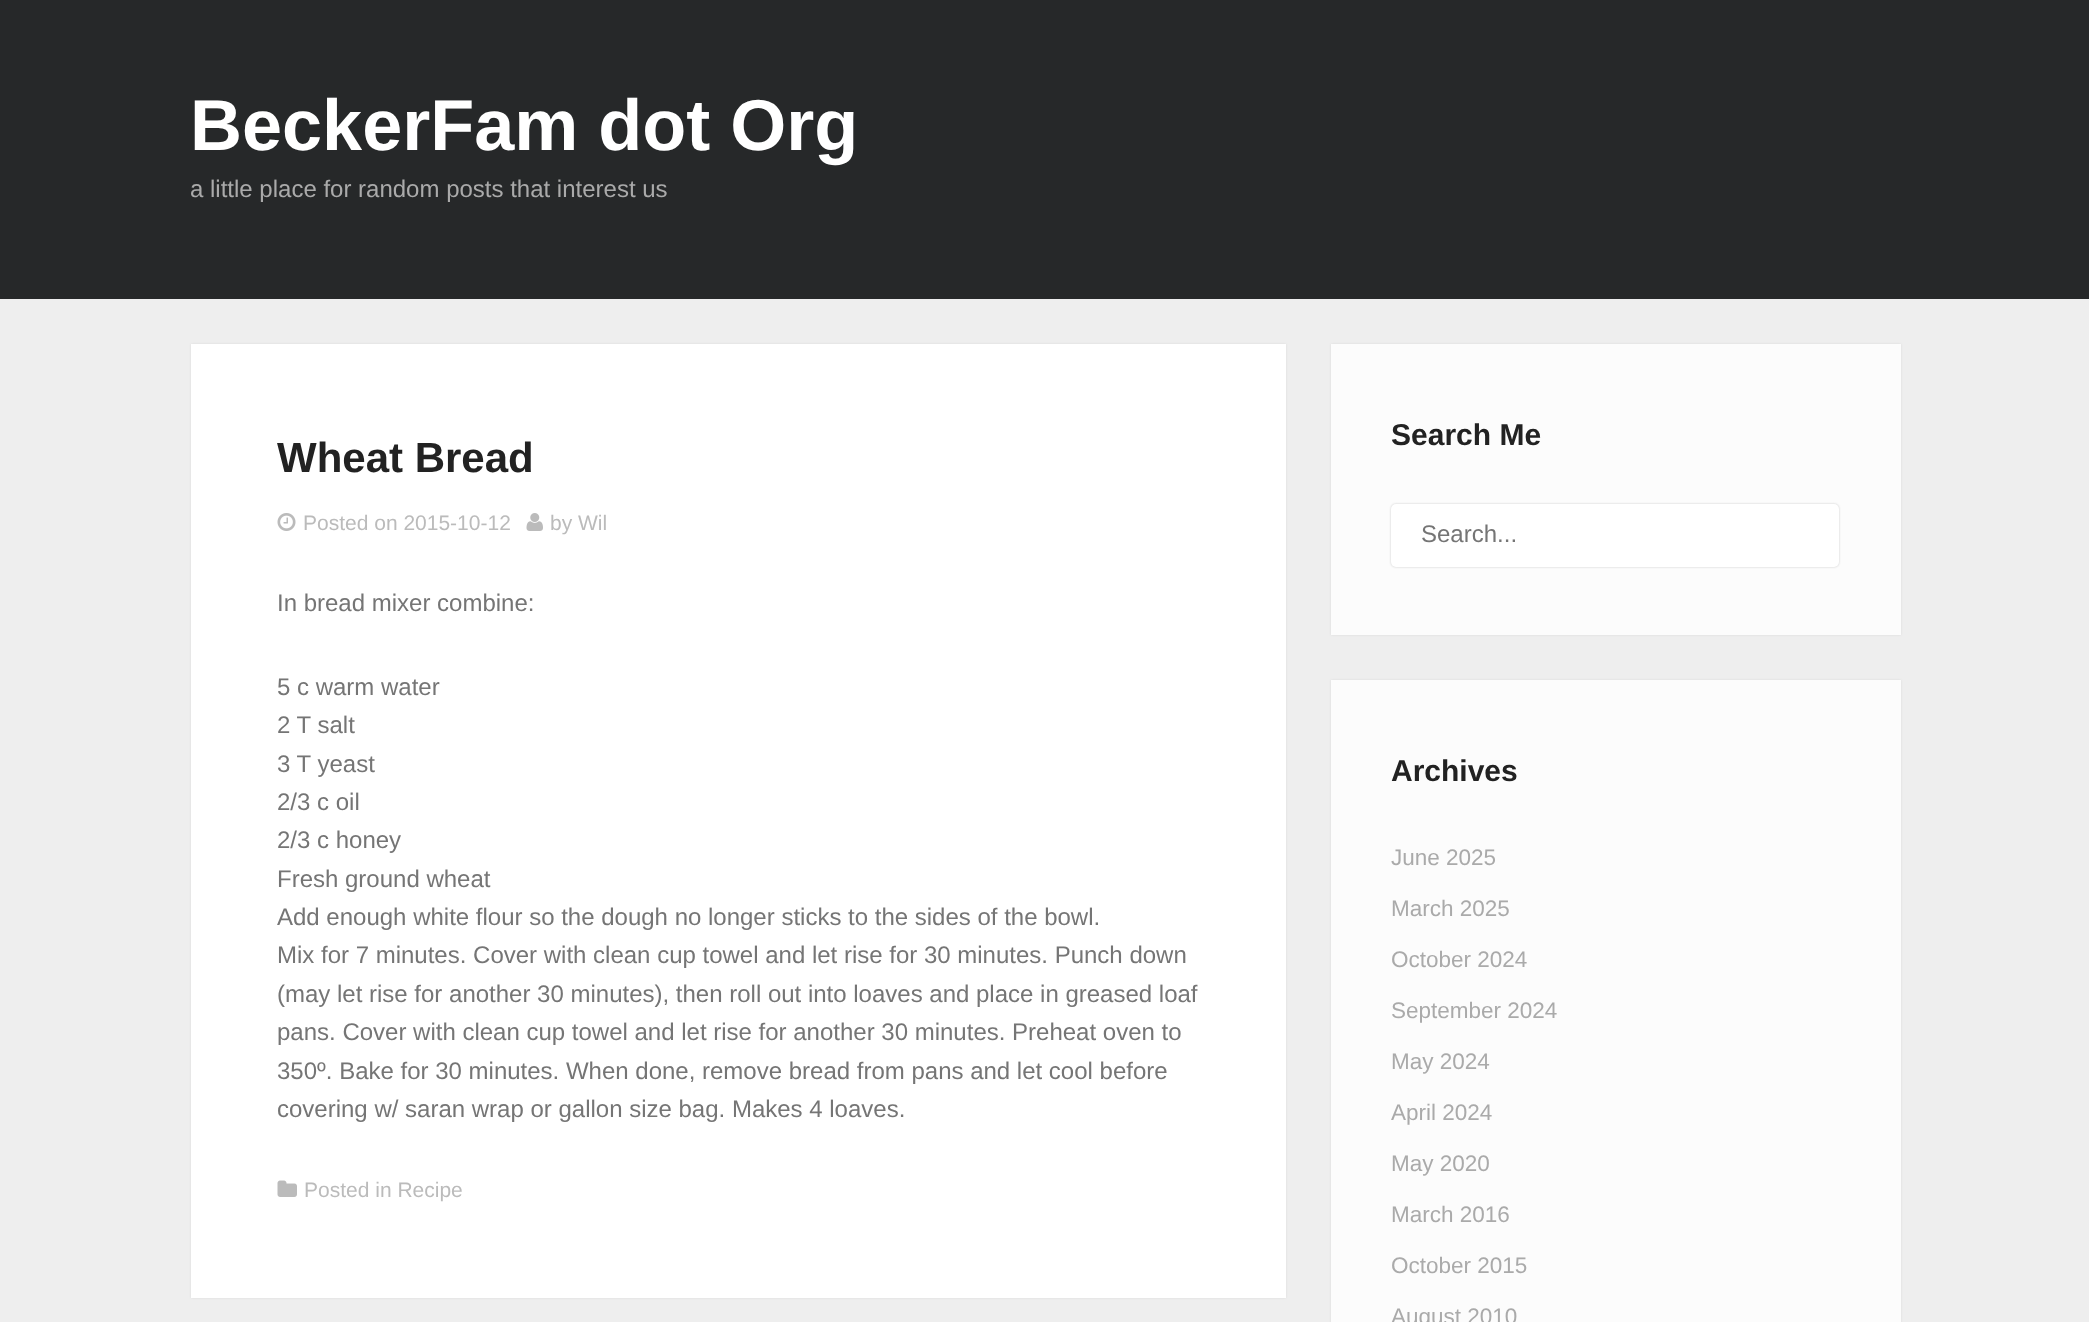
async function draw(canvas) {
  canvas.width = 2089;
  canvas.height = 1322;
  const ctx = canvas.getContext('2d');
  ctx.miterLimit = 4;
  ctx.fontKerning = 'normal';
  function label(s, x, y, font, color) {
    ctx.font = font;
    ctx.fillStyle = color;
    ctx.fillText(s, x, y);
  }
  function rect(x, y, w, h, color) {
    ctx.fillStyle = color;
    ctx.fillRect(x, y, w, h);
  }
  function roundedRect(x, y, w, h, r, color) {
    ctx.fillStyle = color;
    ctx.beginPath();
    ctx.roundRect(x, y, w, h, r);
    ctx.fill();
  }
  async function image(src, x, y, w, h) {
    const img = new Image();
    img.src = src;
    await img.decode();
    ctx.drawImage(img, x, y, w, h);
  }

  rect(0, 0, 2089, 1322, '#eee');
  rect(0, 0, 2089, 299, '#262829');
  label('BeckerFam dot Org', 190, 150, 'bold 72px Liberation Sans', '#fff');
  label('a little place for random posts that interest us', 190, 197, '24px Liberation Sans', '#aaa');
  ctx.fillStyle = '#00000014';
  ctx.filter = 'blur(1px)';
  ctx.beginPath();
  ctx.rect(191, 344, 1095, 954);
  ctx.fill();
  ctx.filter = 'none';
  rect(191, 344, 1095, 954, '#fff');
  label('Wheat Bread', 277, 472, 'bold 42px Liberation Sans', '#222');
  await image('assets/img1.png', 277, 513, 19, 18);
  label('Posted on 2015-10-12', 303, 530, '21px Liberation Sans', '#bbb');
  await image('assets/img2.png', 526, 513, 17, 18);
  label('by Wil', 550, 530, '21px Liberation Sans', '#bbb');
  label('In bread mixer combine:', 277, 611, '24px Liberation Sans', '#757575');
  label('5 c warm water', 277, 695, '24px Liberation Sans', '#757575');
  label('2 T salt', 277, 733, '24px Liberation Sans', '#757575');
  label('3 T yeast', 277, 772, '24px Liberation Sans', '#757575');
  label('2/3 c oil', 277, 810, '24px Liberation Sans', '#757575');
  label('2/3 c honey', 277, 848, '24px Liberation Sans', '#757575');
  label('Fresh ground wheat', 277, 887, '24px Liberation Sans', '#757575');
  label('Add enough white flour so the dough no longer sticks to the sides of the bowl.', 277, 925, '24px Liberation Sans', '#757575');
  label('Mix for 7 minutes. Cover with clean cup towel and let rise for 30 minutes. Punch down', 277, 963, '24px Liberation Sans', '#757575');
  label('(may let rise for another 30 minutes), then roll out into loaves and place in greased loaf', 277, 1002, '24px Liberation Sans', '#757575');
  label('pans. Cover with clean cup towel and let rise for another 30 minutes. Preheat oven to', 277, 1040, '24px Liberation Sans', '#757575');
  label('350º. Bake for 30 minutes. When done, remove bread from pans and let cool before', 277, 1079, '24px Liberation Sans', '#757575');
  label('covering w/ saran wrap or gallon size bag. Makes 4 loaves.', 277, 1117, '24px Liberation Sans', '#757575');
  await image('assets/img3.png', 277, 1180, 20, 17);
  label('Posted in Recipe', 304, 1197, '21px Liberation Sans', '#bbb');
  ctx.fillStyle = '#00000014';
  ctx.filter = 'blur(1px)';
  ctx.beginPath();
  ctx.rect(1331, 344, 570, 291);
  ctx.fill();
  ctx.filter = 'none';
  rect(1331, 344, 570, 291, '#fcfcfc');
  label('Search Me', 1391, 445, 'bold 30px Liberation Sans', '#222');
  ctx.fillStyle = '#ccc';
  ctx.filter = 'blur(1px)';
  ctx.beginPath();
  ctx.roundRect(1391, 504, 448, 63, 5);
  ctx.fill();
  ctx.filter = 'none';
  roundedRect(1391, 504, 448, 63, 5, '#fff');
  label('Search...', 1421, 542, '24px Liberation Sans', '#757575');
  ctx.fillStyle = '#00000014';
  ctx.filter = 'blur(1px)';
  ctx.beginPath();
  ctx.rect(1331, 680, 570, 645);
  ctx.fill();
  ctx.filter = 'none';
  rect(1331, 680, 570, 642, '#fcfcfc');
  label('Archives', 1391, 781, 'bold 30px Liberation Sans', '#222');
  label('June 2025', 1391, 865, '22.5px Liberation Sans', '#aaa');
  label('March 2025', 1391, 916, '22.5px Liberation Sans', '#aaa');
  label('October 2024', 1391, 967, '22.5px Liberation Sans', '#aaa');
  label('September 2024', 1391, 1018, '22.5px Liberation Sans', '#aaa');
  label('May 2024', 1391, 1069, '22.5px Liberation Sans', '#aaa');
  label('April 2024', 1391, 1120, '22.5px Liberation Sans', '#aaa');
  label('May 2020', 1391, 1171, '22.5px Liberation Sans', '#aaa');
  label('March 2016', 1391, 1222, '22.5px Liberation Sans', '#aaa');
  label('October 2015', 1391, 1273, '22.5px Liberation Sans', '#aaa');
  label('August 2010', 1391, 1324, '22.5px Liberation Sans', '#aaa');
}

draw(document.querySelector('canvas'));
